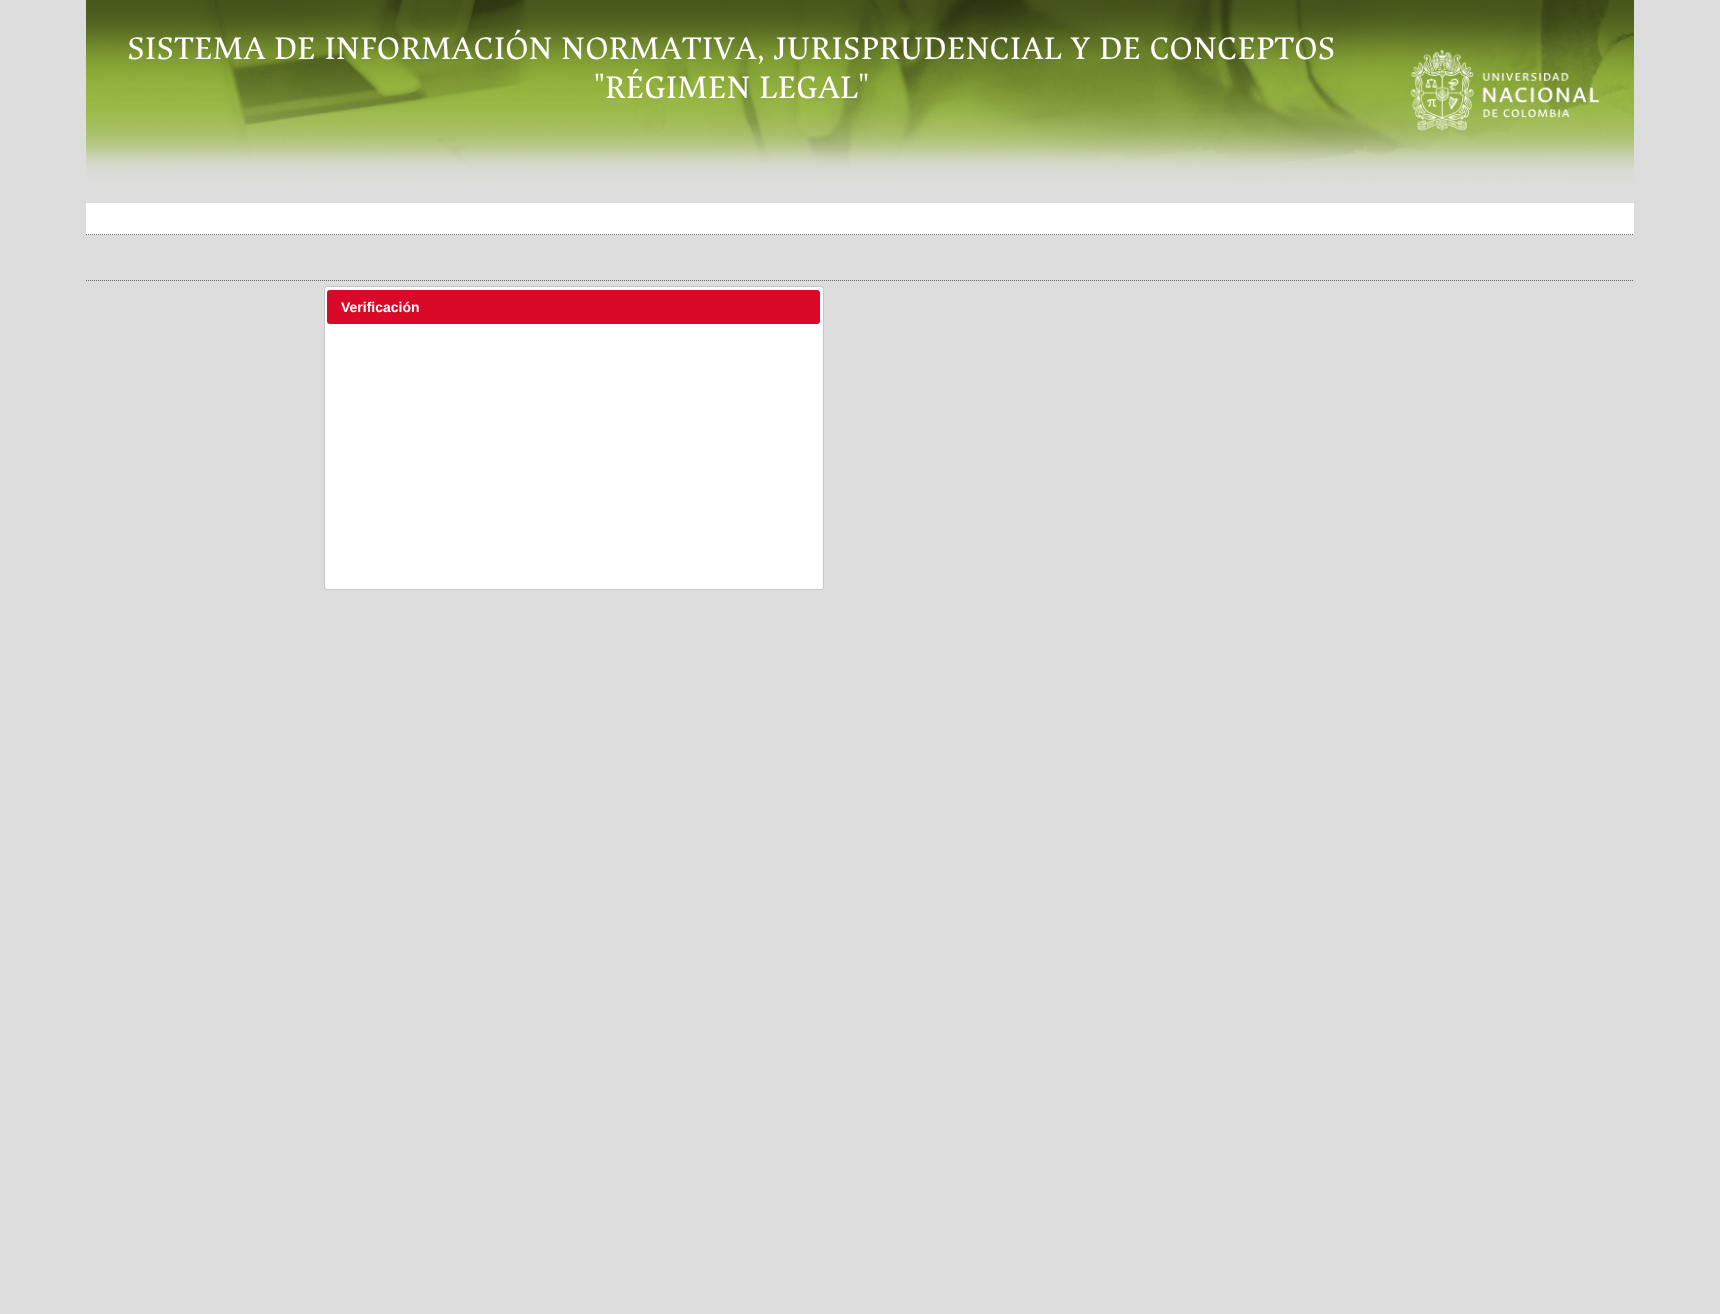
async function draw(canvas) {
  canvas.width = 1720;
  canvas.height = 1314;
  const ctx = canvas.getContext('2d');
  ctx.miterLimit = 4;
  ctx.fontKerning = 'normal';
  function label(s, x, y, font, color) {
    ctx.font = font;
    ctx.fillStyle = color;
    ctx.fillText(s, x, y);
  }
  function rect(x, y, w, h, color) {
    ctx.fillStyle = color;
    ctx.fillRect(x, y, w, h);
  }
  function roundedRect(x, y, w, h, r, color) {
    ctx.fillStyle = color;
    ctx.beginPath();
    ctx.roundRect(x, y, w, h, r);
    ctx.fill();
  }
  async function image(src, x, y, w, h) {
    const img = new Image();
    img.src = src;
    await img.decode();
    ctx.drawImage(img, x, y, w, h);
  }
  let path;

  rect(0, 0, 1720, 1314, '#ddd');
  await image('assets/img1.png', 86, 0, 1548, 181);
  label('SISTEMA DE INFORMACIÓN NORMATIVA, JURISPRUDENCIAL Y DE CONCEPTOS', 127, 59, '35px Ancizar Serif', '#fff');
  label('"RÉGIMEN LEGAL"', 594, 98, '35px Ancizar Serif', '#fff');
  await image('assets/img2.png', 1410, 49, 190, 82);
  path = new Path2D('M86 280.5H1634');
  ctx.strokeStyle = '#646464';
  ctx.setLineDash([1, 1]);
  ctx.stroke(path);
  rect(86, 203, 1548, 32, '#fff');
  path = new Path2D('M86 234.5H1634');
  ctx.stroke(path);
  ctx.beginPath();
  ctx.roundRect(324.5, 286.5, 499, 303, 2.5);
  ctx.fill();
  ctx.strokeStyle = '#c5c5c5';
  ctx.setLineDash([]);
  ctx.stroke();
  roundedRect(327, 290, 493, 34, 3, '#d90927');
  label('Verificación', 341, 312, 'bold 14px Liberation Sans', '#fff');
}

draw(document.querySelector('canvas'));
